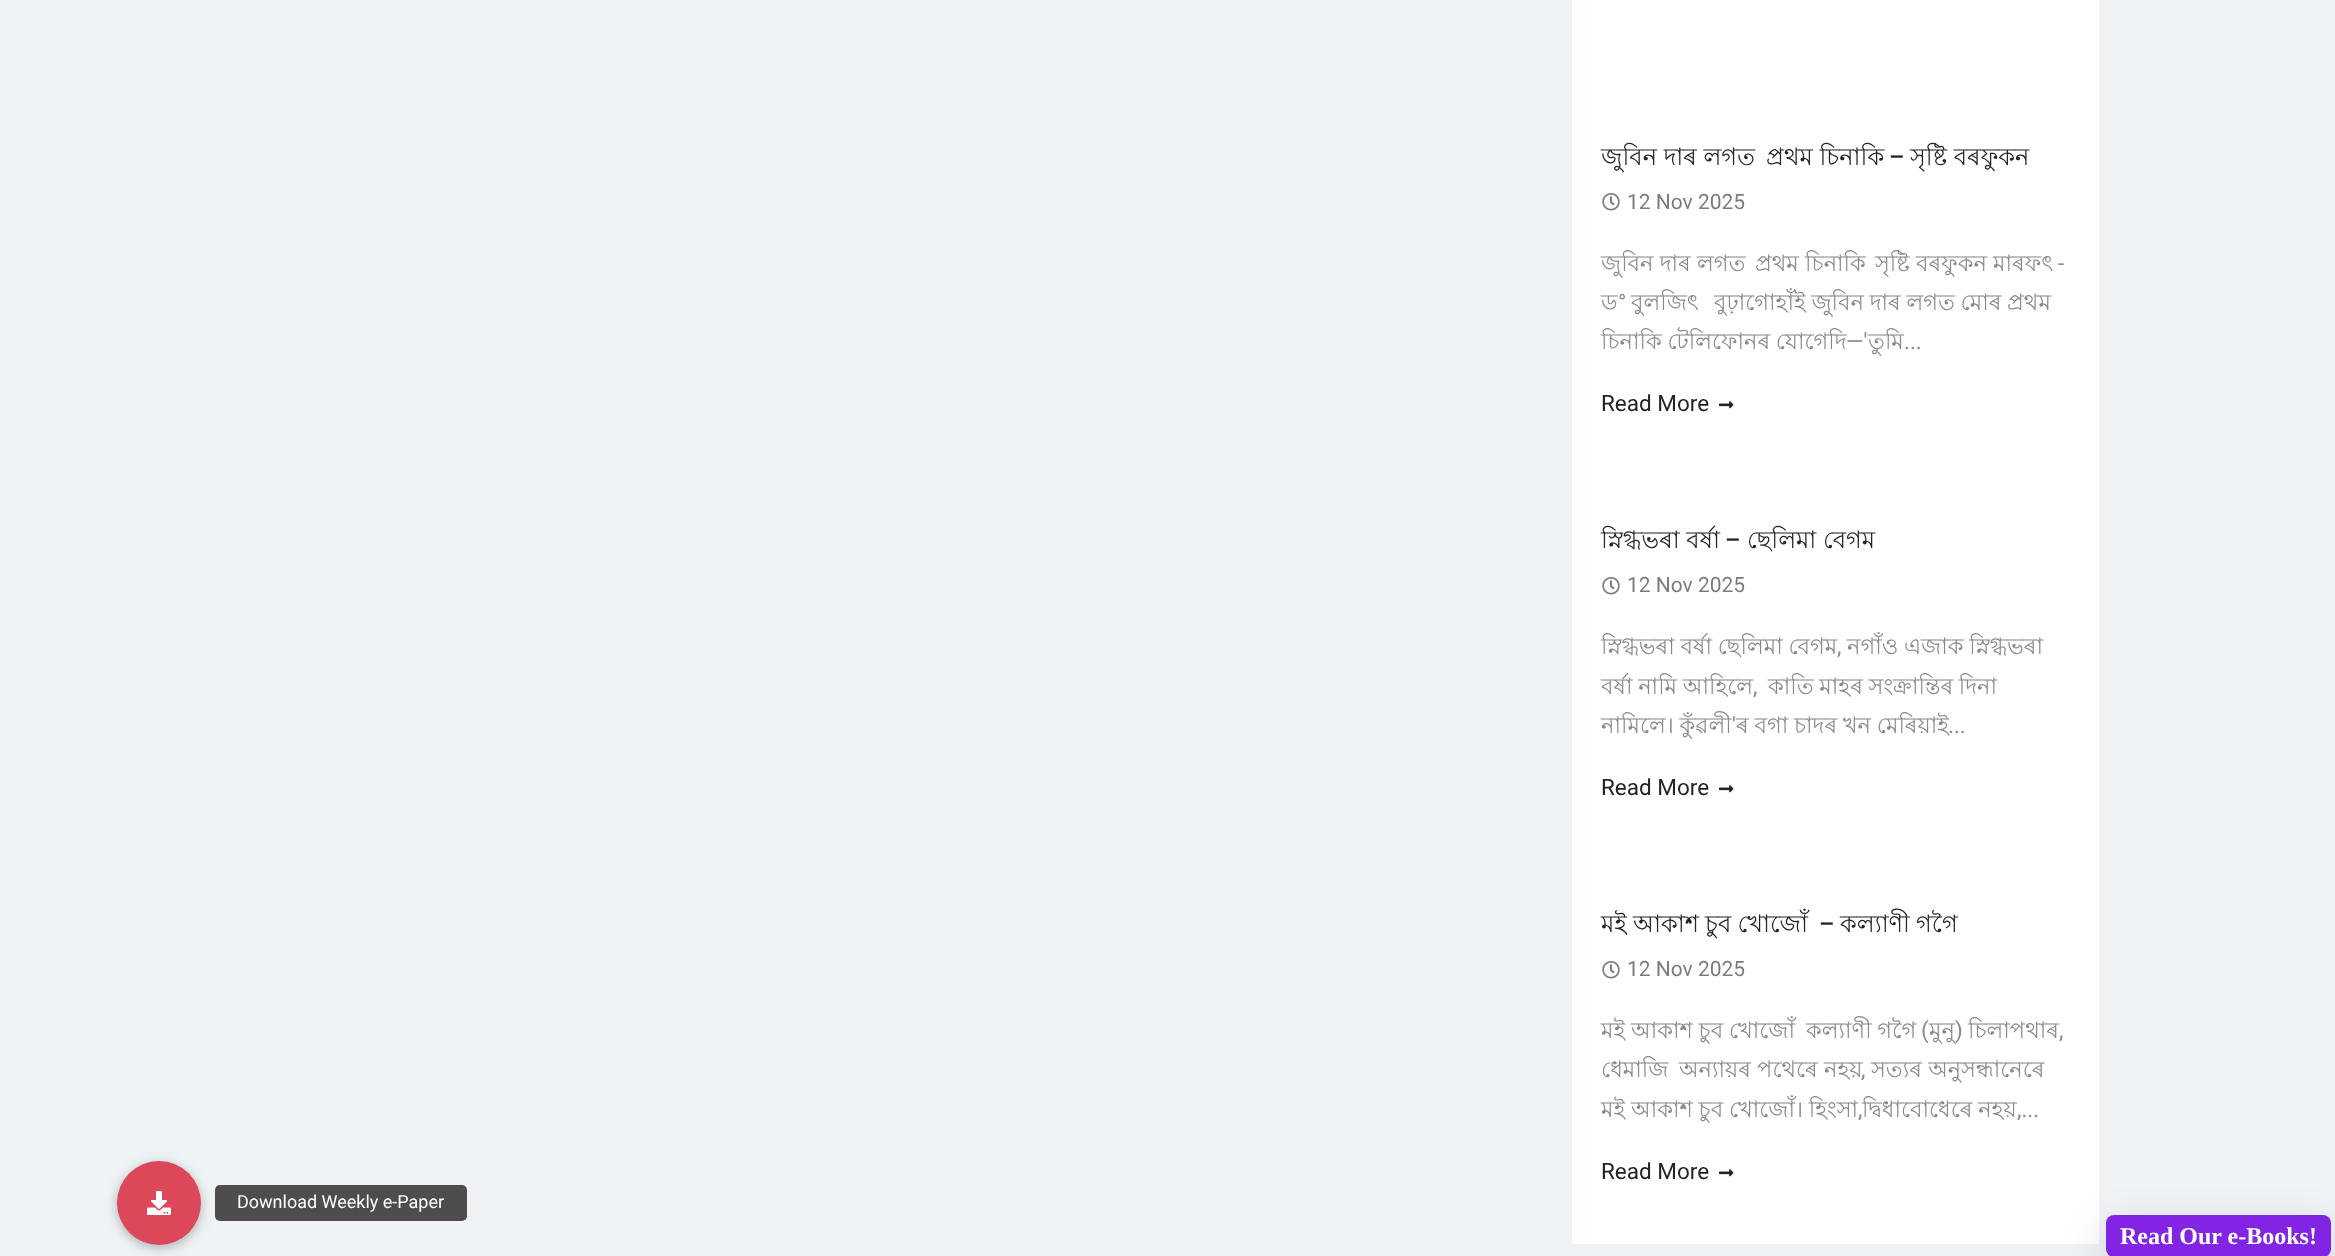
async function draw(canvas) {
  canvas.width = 2335;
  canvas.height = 1256;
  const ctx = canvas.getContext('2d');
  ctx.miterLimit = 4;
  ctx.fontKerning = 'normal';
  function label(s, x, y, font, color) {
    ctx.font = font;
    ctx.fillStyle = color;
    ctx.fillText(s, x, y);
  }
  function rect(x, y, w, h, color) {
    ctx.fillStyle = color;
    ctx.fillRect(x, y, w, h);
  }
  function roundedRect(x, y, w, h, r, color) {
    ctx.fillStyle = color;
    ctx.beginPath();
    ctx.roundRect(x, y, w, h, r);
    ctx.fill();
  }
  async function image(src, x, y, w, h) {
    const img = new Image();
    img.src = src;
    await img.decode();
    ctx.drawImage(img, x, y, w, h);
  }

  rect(0, 0, 2335, 1256, '#f0f3f5');
  rect(1572, 0, 527, 1244, '#fff');
  label('জুবিন দাৰ লগত', 1601, 165, '24px Lohit Bengali', '#242424');
  label('প্ৰথম চিনাকি', 1766, 165, '24px Lohit Bengali', '#242424');
  label('–', 1889, 165, '500 24px Roboto', '#242424');
  label('সৃষ্টি বৰফুকন', 1910, 165, '24px Lohit Bengali', '#242424');
  await image('assets/img1.png', 1602, 193, 18, 18);
  label('12 Nov 2025', 1627, 209, '21px Roboto', '#807a7a');
  label('জুবিন দাৰ লগত', 1601, 271, '22.5px Lohit Bengali', '#88898a');
  label('প্ৰথম চিনাকি', 1755, 271, '22.5px Lohit Bengali', '#88898a');
  label('সৃষ্টি বৰফুকন মাৰফৎ', 1875, 271, '22.5px Lohit Bengali', '#88898a');
  label('-', 2058, 271, '22.5px Roboto', '#88898a');
  label('°', 1618, 310, '22.5px Roboto', '#88898a');
  label('বুলজিৎ', 1631, 310, '22.5px Lohit Bengali', '#88898a');
  ctx.wordSpacing = '-0.5px';
  label('বুঢ়াগোহাঁই জুবিন দাৰ লগত মোৰ প্ৰথম', 1714, 310, '22.5px Lohit Bengali', '#88898a');
  ctx.wordSpacing = '0px';
  label('ড', 1601, 310, '22.5px Lohit Bengali', '#88898a');
  ctx.wordSpacing = '-0.5px';
  label('চিনাকি টেলিফোনৰ যোগেদি', 1601, 349, '22.5px Lohit Bengali', '#88898a');
  ctx.wordSpacing = '0px';
  label('—\'', 1846, 349, '22.5px Roboto', '#88898a');
  label('তুমি', 1868, 349, '22.5px Lohit Bengali', '#88898a');
  label('...', 1904, 349, '22.5px Roboto', '#88898a');
  label('Read More', 1601, 411, '22.5px Roboto', '#242424');
  await image('assets/img2.png', 1719, 401, 15, 8);
  label('স্নিগ্ধভৰা বৰ্ষা', 1601, 548, '24px Lohit Bengali', '#242424');
  label('–', 1725, 548, '500 24px Roboto', '#242424');
  label('ছেলিমা বেগম', 1747, 548, '24px Lohit Bengali', '#242424');
  await image('assets/img1.png', 1602, 577, 18, 18);
  label('12 Nov 2025', 1627, 592, '21px Roboto', '#807a7a');
  ctx.wordSpacing = '-0.5px';
  label('স্নিগ্ধভৰা বৰ্ষা ছেলিমা বেগম', 1601, 654, '22.5px Lohit Bengali', '#88898a');
  ctx.wordSpacing = '0px';
  label(',', 1837, 654, '22.5px Roboto', '#88898a');
  ctx.wordSpacing = '-0.5px';
  label('নগাঁও এজাক স্নিগ্ধভৰা', 1847, 654, '22.5px Lohit Bengali', '#88898a');
  label('বৰ্ষা নামি আহিলে', 1601, 694, '22.5px Lohit Bengali', '#88898a');
  ctx.wordSpacing = '0px';
  label(',', 1753, 694, '22.5px Roboto', '#88898a');
  ctx.wordSpacing = '-0.5px';
  label('কাতি মাহৰ সংক্ৰান্তিৰ দিনা', 1768, 694, '22.5px Lohit Bengali', '#88898a');
  label('নামিলে। কুঁৱলী', 1601, 733, '22.5px Lohit Bengali', '#88898a');
  ctx.wordSpacing = '0px';
  label('\'', 1732, 733, '22.5px Roboto', '#88898a');
  ctx.wordSpacing = '-0.5px';
  label('ৰ বগা চাদৰ খন মেৰিয়াই', 1736, 733, '22.5px Lohit Bengali', '#88898a');
  ctx.wordSpacing = '0px';
  label('...', 1948, 733, '22.5px Roboto', '#88898a');
  label('Read More', 1601, 795, '22.5px Roboto', '#242424');
  await image('assets/img2.png', 1719, 785, 15, 8);
  ctx.wordSpacing = '-0.5px';
  label('মই আকাশ চুব খোজোঁ', 1601, 932, '24px Lohit Bengali', '#242424');
  ctx.wordSpacing = '0px';
  label('–', 1819, 932, '500 24px Roboto', '#242424');
  ctx.wordSpacing = '-0.5px';
  label('কল্যাণী গগৈ', 1840, 932, '24px Lohit Bengali', '#242424');
  await image('assets/img1.png', 1602, 961, 18, 18);
  ctx.wordSpacing = '0px';
  label('12 Nov 2025', 1627, 976, '21px Roboto', '#807a7a');
  ctx.wordSpacing = '-0.5px';
  label('মই আকাশ চুব খোজোঁ', 1601, 1038, '22.5px Lohit Bengali', '#88898a');
  label('কল্যাণী গগৈ', 1806, 1038, '22.5px Lohit Bengali', '#88898a');
  ctx.wordSpacing = '0px';
  label('(', 1921, 1038, '22.5px Roboto', '#88898a');
  label('মুনু', 1929, 1038, '22.5px Lohit Bengali', '#88898a');
  label(')', 1955, 1038, '22.5px Roboto', '#88898a');
  label('চিলাপথাৰ', 1968, 1038, '22.5px Lohit Bengali', '#88898a');
  label(',', 2059, 1038, '22.5px Roboto', '#88898a');
  label('ধেমাজি', 1601, 1077, '22.5px Lohit Bengali', '#88898a');
  label('অন্যায়ৰ পথেৰে নহয়', 1679, 1077, '22.5px Lohit Bengali', '#88898a');
  label(',', 1861, 1077, '22.5px Roboto', '#88898a');
  label('সত্যৰ অনুসন্ধানেৰে', 1871, 1077, '22.5px Lohit Bengali', '#88898a');
  ctx.wordSpacing = '-0.5px';
  label('মই আকাশ চুব খোজোঁ। হিংসা', 1601, 1117, '22.5px Lohit Bengali', '#88898a');
  ctx.wordSpacing = '0px';
  label(',', 1858, 1117, '22.5px Roboto', '#88898a');
  ctx.wordSpacing = '-0.5px';
  label('দ্বিধাবোধেৰে নহয়', 1862, 1117, '22.5px Lohit Bengali', '#88898a');
  ctx.wordSpacing = '0px';
  label(',...', 2017, 1117, '22.5px Roboto', '#88898a');
  label('Read More', 1601, 1179, '22.5px Roboto', '#242424');
  await image('assets/img2.png', 1719, 1169, 15, 8);
  ctx.fillStyle = '#0000001f';
  ctx.filter = 'blur(7.5px)';
  ctx.beginPath();
  ctx.roundRect(117, 1164, 84, 84, 42);
  ctx.fill();
  ctx.filter = 'none';
  ctx.fillStyle = '#00000029';
  ctx.filter = 'blur(4px)';
  ctx.beginPath();
  ctx.roundRect(117, 1164, 84, 84, 42);
  ctx.fill();
  ctx.filter = 'none';
  ctx.fillStyle = '#dc485a';
  ctx.beginPath();
  ctx.arc(159, 1203, 42, 0, 2 * Math.PI);
  ctx.fill();
  await image('assets/img3.png', 147, 1191, 24, 24);
  roundedRect(215, 1185, 252, 36, 5, '#4e4c4c');
  label('Download Weekly e-Paper', 237, 1208, '18px Roboto', '#fff');
  ctx.fillStyle = '#0202021a';
  ctx.filter = 'blur(19px)';
  ctx.beginPath();
  ctx.roundRect(2100, 1224, 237, 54, 14);
  ctx.fill();
  ctx.filter = 'none';
  roundedRect(2106, 1215, 225, 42, 8, '#8224e3');
  label('Read Our e-Books!', 2120, 1244, 'bold 24px Liberation Serif', '#fff');
}

draw(document.querySelector('canvas'));
